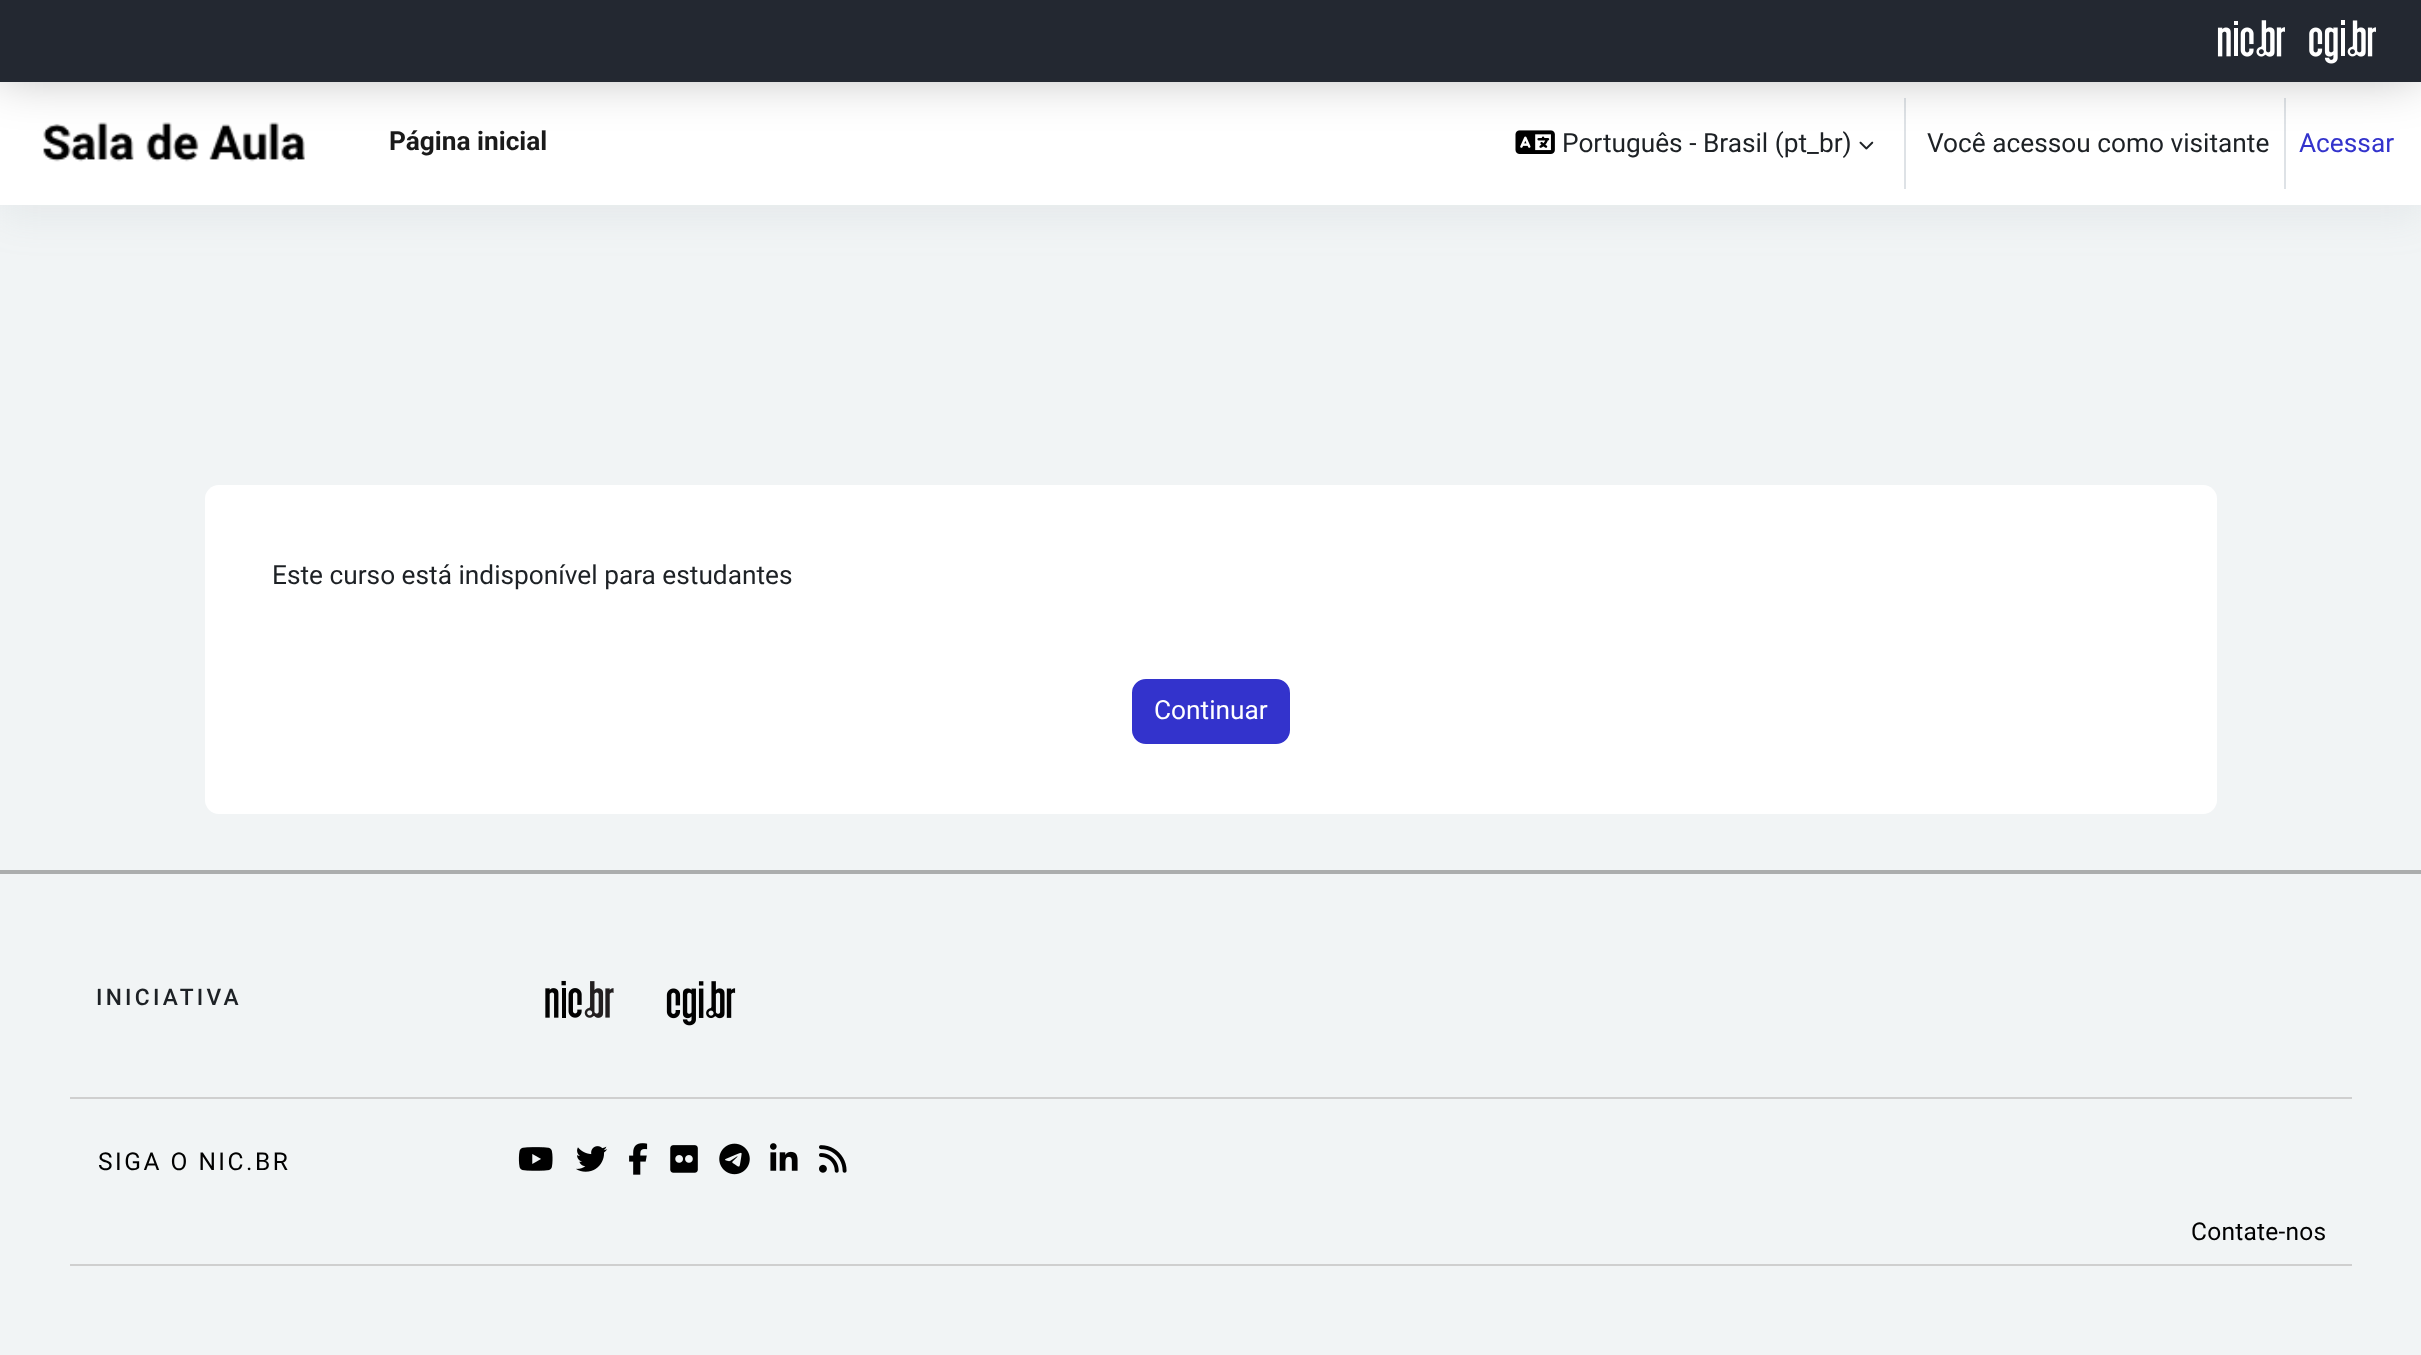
async function draw(canvas) {
  canvas.width = 2421;
  canvas.height = 1355;
  const ctx = canvas.getContext('2d');
  ctx.miterLimit = 4;
  ctx.fontKerning = 'normal';
  function label(s, x, y, font, color) {
    ctx.font = font;
    ctx.fillStyle = color;
    ctx.fillText(s, x, y);
  }
  function rect(x, y, w, h, color) {
    ctx.fillStyle = color;
    ctx.fillRect(x, y, w, h);
  }
  function roundedRect(x, y, w, h, r, color) {
    ctx.fillStyle = color;
    ctx.beginPath();
    ctx.roundRect(x, y, w, h, r);
    ctx.fill();
  }
  async function image(src, x, y, w, h) {
    const img = new Image();
    img.src = src;
    await img.decode();
    ctx.drawImage(img, x, y, w, h);
  }

  rect(0, 0, 2421, 1355, '#f1f4f5');
  ctx.fillStyle = '#8c98a421';
  ctx.filter = 'blur(21px)';
  ctx.beginPath();
  ctx.rect(0, 93, 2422, 122);
  ctx.fill();
  ctx.filter = 'none';
  rect(0, 82, 2421, 123, '#fff');
  await image('assets/img3.png', 43, 122, 262, 40);
  await image('assets/img4.png', 1515, 130, 40, 24);
  await image('assets/img5.png', 1859, 141, 15, 9);
  rect(1904, 98, 2, 91, '#dee2e6');
  rect(2284, 98, 2, 91, '#dee2e6');
  ctx.fillStyle = '#0000004d';
  ctx.filter = 'blur(26px)';
  ctx.beginPath();
  ctx.rect(-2, -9, 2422, 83);
  ctx.fill();
  ctx.filter = 'none';
  rect(0, 0, 2421, 82, '#232831');
  await image('assets/img1.png', 2217, 20, 68, 37);
  await image('assets/img2.png', 2309, 20, 67, 44);
  label('Página inicial', 389, 150, 'bold 26.25px Roboto', '#1a1a1a');
  label('Português - Brasil (pt_br)', 1562, 152, '26.25px Roboto', '#1d2125');
  label('Você acessou como visitante', 1927, 152, '26.25px Roboto', '#1d2125');
  label('Acessar', 2299, 152, '26.25px Roboto', '#33c');
  roundedRect(205, 485, 2012, 329, 14, '#fff');
  label('Este curso está indisponível para estudantes', 272, 584, '26.25px Roboto', '#1d2125');
  ctx.fillStyle = '#33c';
  ctx.beginPath();
  ctx.roundRect(1133, 680, 156, 63, 13);
  ctx.fill();
  ctx.strokeStyle = '#33c';
  ctx.lineWidth = 2;
  ctx.stroke();
  label('Continuar', 1154, 719, '26.25px Roboto', '#fff');
  rect(0, 870, 2421, 4, '#abadad');
  ctx.letterSpacing = '3.25px';
  label('INICIATIVA', 96, 1005, '500 22.75px Roboto', '#1d2125');
  await image('assets/img6.png', 545, 980, 69, 38);
  await image('assets/img7.png', 666, 981, 70, 45);
  rect(70, 1097, 2282, 2, '#cfcfcf');
  rect(70, 1264, 2282, 2, '#cfcfcf');
  ctx.letterSpacing = '2.5px';
  label('SIGA O NIC.BR', 98, 1170, '24.5px Roboto', '#000');
  await image('assets/img8.png', 518, 1147, 35, 24);
  await image('assets/img9.png', 576, 1146, 32, 26);
  await image('assets/img10.png', 629, 1143, 19, 32);
  await image('assets/img11.png', 670, 1145, 28, 28);
  await image('assets/img12.png', 719, 1143, 31, 32);
  await image('assets/img13.png', 770, 1143, 28, 28);
  await image('assets/img14.png', 819, 1145, 28, 28);
  ctx.letterSpacing = '0.25px';
  label('Contate-nos', 2191, 1240, '24.5px Roboto', '#000');
}

draw(document.querySelector('canvas'));
